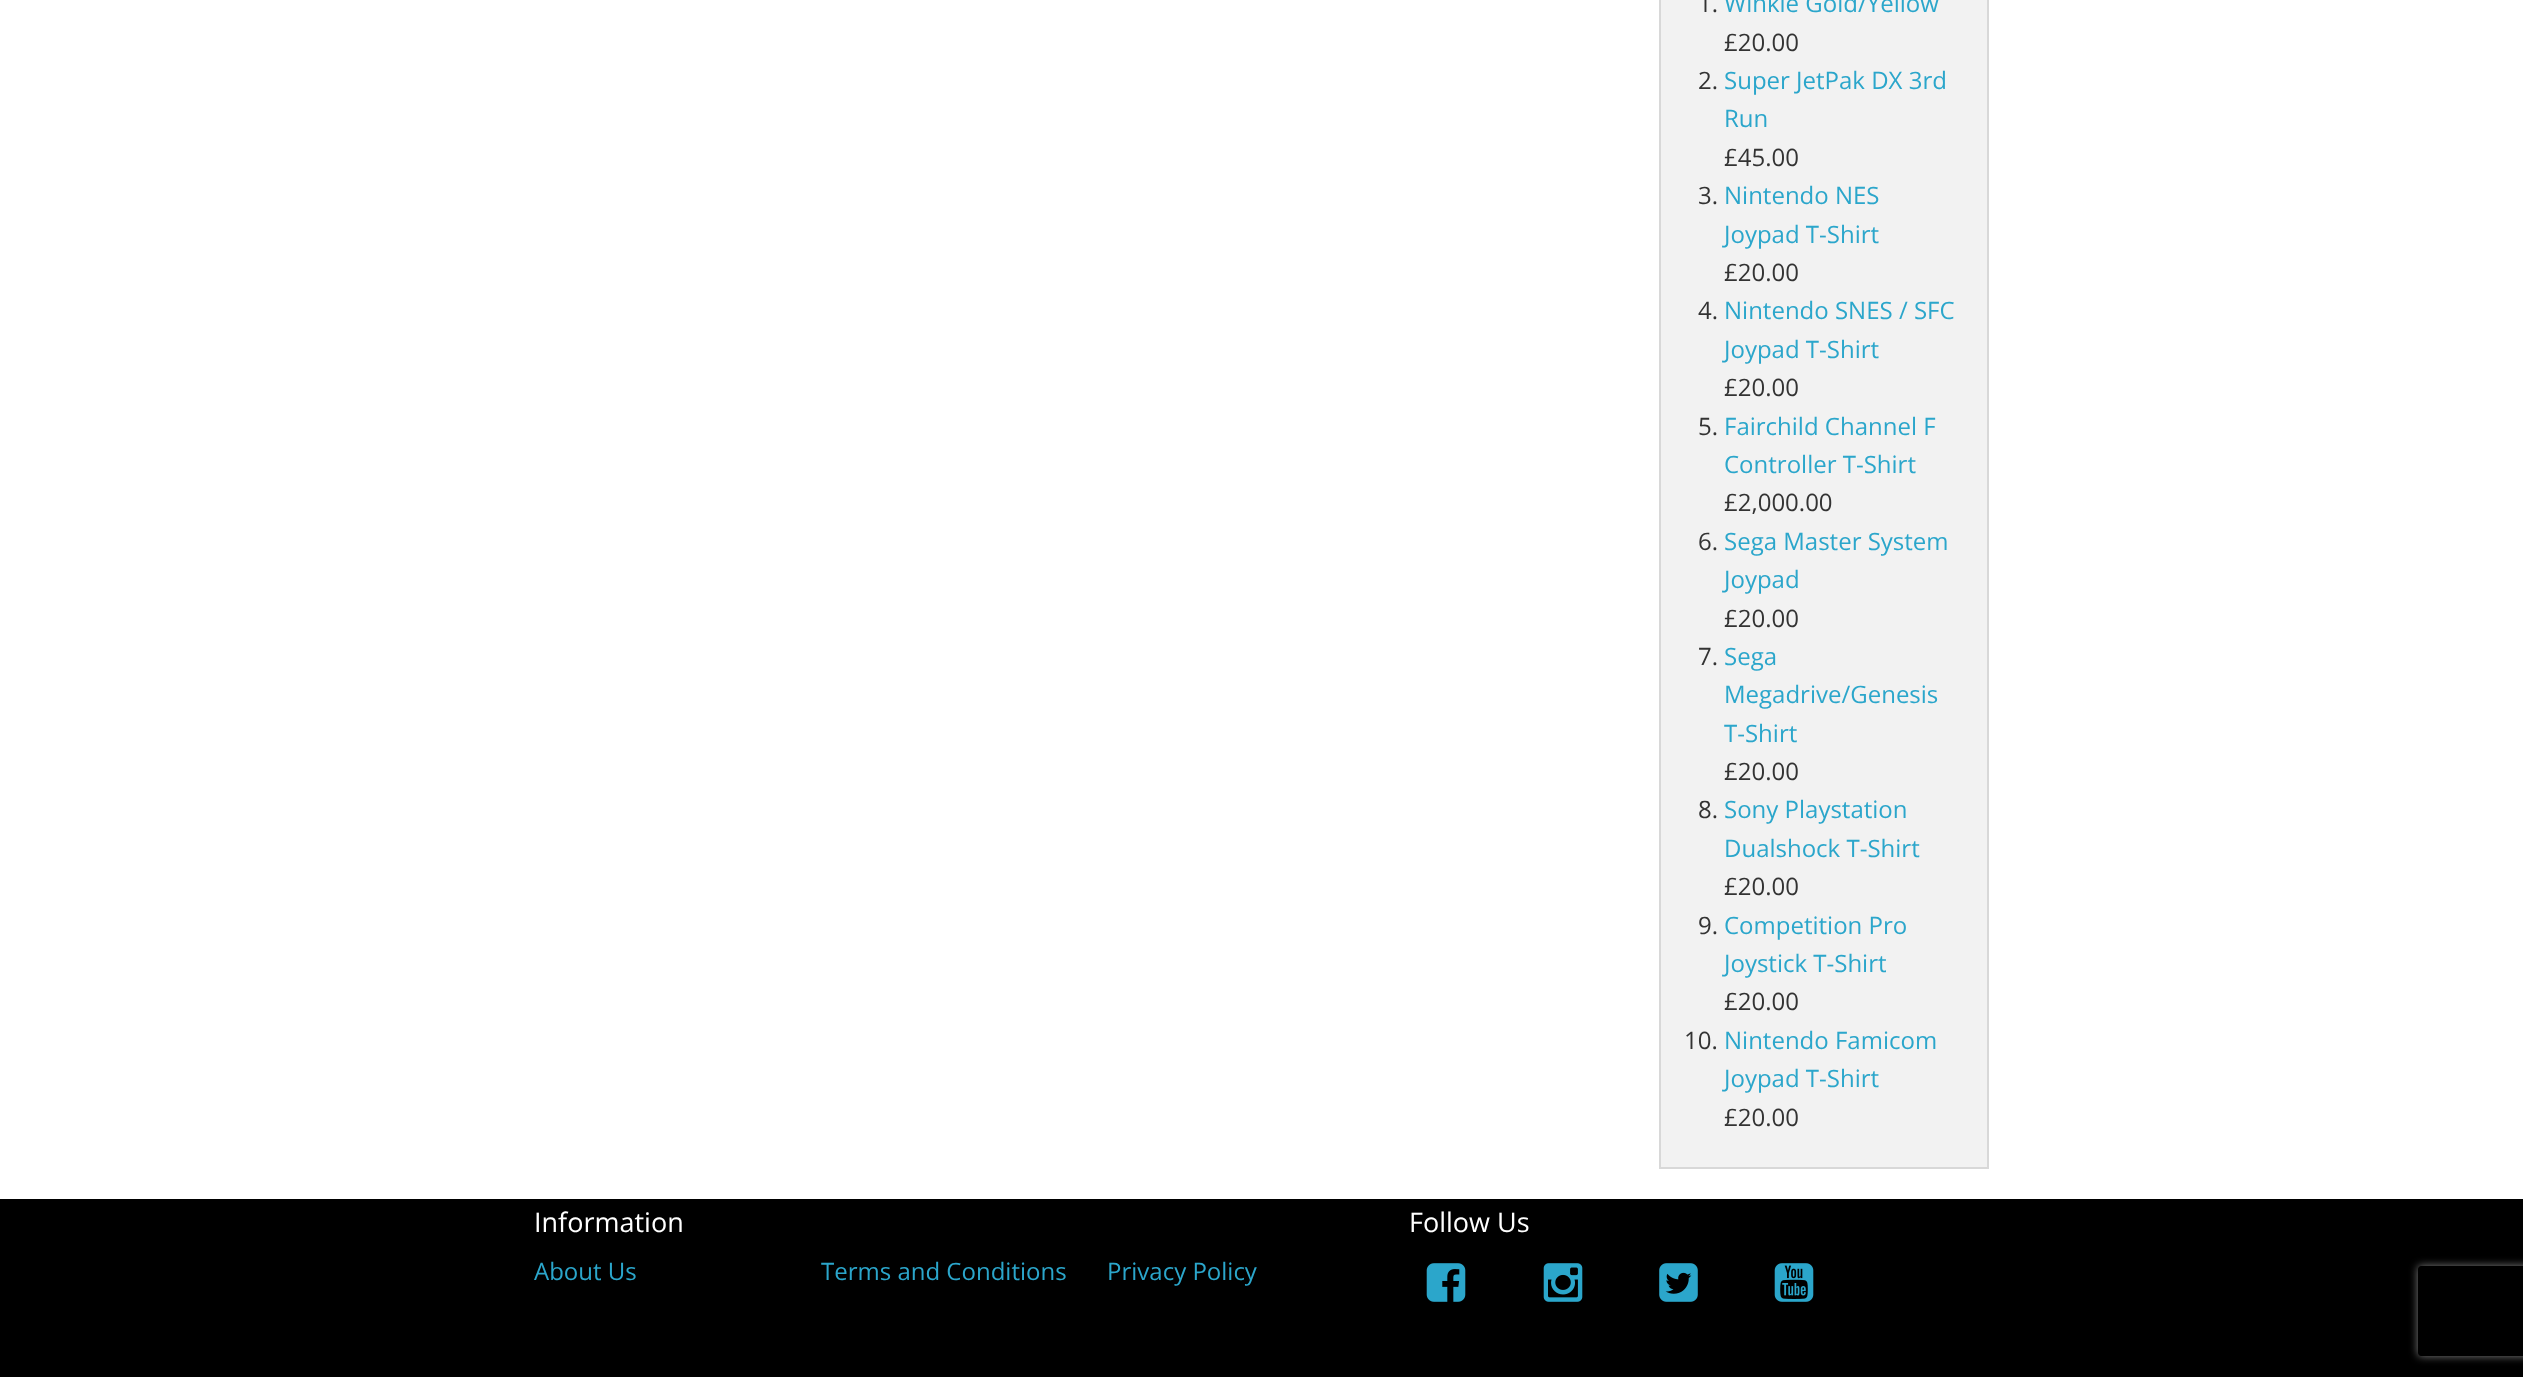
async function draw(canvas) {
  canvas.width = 2523;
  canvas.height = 1377;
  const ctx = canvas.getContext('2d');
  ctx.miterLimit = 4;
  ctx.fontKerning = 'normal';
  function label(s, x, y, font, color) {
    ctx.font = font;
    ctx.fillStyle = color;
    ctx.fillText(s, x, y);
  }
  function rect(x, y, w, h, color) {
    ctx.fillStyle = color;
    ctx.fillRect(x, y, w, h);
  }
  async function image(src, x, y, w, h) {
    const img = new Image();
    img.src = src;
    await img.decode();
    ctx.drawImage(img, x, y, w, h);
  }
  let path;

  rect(0, 0, 2523, 1377, '#fff');
  ctx.fillStyle = '#f2f2f2';
  ctx.beginPath();
  ctx.rect(1660, -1, 328, 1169);
  ctx.fill();
  ctx.strokeStyle = '#d8d8d8';
  ctx.lineWidth = 2;
  ctx.stroke();
  label('1.', 1698, 12, '24px Open Sans', '#333');
  label('Winkie Gold/Yellow', 1724, 12, '24px Open Sans', '#2ba6cb');
  label('£20.00', 1724, 51, '24px Open Sans', '#333');
  label('2.', 1698, 89, '24px Open Sans', '#333');
  label('Super JetPak DX 3rd', 1724, 89, '24px Open Sans', '#2ba6cb');
  label('Run', 1724, 127, '24px Open Sans', '#2ba6cb');
  label('£45.00', 1724, 166, '24px Open Sans', '#333');
  label('3.', 1698, 204, '24px Open Sans', '#333');
  label('Nintendo NES', 1724, 204, '24px Open Sans', '#2ba6cb');
  label('Joypad T-Shirt', 1724, 243, '24px Open Sans', '#2ba6cb');
  label('£20.00', 1724, 281, '24px Open Sans', '#333');
  label('4.', 1698, 319, '24px Open Sans', '#333');
  label('Nintendo SNES / SFC', 1724, 319, '24px Open Sans', '#2ba6cb');
  label('Joypad T-Shirt', 1724, 358, '24px Open Sans', '#2ba6cb');
  label('£20.00', 1724, 396, '24px Open Sans', '#333');
  label('5.', 1698, 435, '24px Open Sans', '#333');
  label('Fairchild Channel F', 1724, 435, '24px Open Sans', '#2ba6cb');
  label('Controller T-Shirt', 1724, 473, '24px Open Sans', '#2ba6cb');
  label('£2,000.00', 1724, 511, '24px Open Sans', '#333');
  label('6.', 1698, 550, '24px Open Sans', '#333');
  label('Sega Master System', 1724, 550, '24px Open Sans', '#2ba6cb');
  label('Joypad', 1724, 588, '24px Open Sans', '#2ba6cb');
  label('£20.00', 1724, 627, '24px Open Sans', '#333');
  label('7.', 1698, 665, '24px Open Sans', '#333');
  label('Sega', 1724, 665, '24px Open Sans', '#2ba6cb');
  label('Megadrive/Genesis', 1724, 703, '24px Open Sans', '#2ba6cb');
  label('T-Shirt', 1724, 742, '24px Open Sans', '#2ba6cb');
  label('£20.00', 1724, 780, '24px Open Sans', '#333');
  label('8.', 1698, 818, '24px Open Sans', '#333');
  label('Sony Playstation', 1724, 818, '24px Open Sans', '#2ba6cb');
  label('Dualshock T-Shirt', 1724, 857, '24px Open Sans', '#2ba6cb');
  label('£20.00', 1724, 895, '24px Open Sans', '#333');
  label('9.', 1698, 934, '24px Open Sans', '#333');
  label('Competition Pro', 1724, 934, '24px Open Sans', '#2ba6cb');
  label('Joystick T-Shirt', 1724, 972, '24px Open Sans', '#2ba6cb');
  label('£20.00', 1724, 1010, '24px Open Sans', '#333');
  label('10.', 1684, 1049, '24px Open Sans', '#333');
  label('Nintendo Famicom', 1724, 1049, '24px Open Sans', '#2ba6cb');
  label('Joypad T-Shirt', 1724, 1087, '24px Open Sans', '#2ba6cb');
  label('£20.00', 1724, 1126, '24px Open Sans', '#333');
  rect(0, 1199, 2523, 178, '#000');
  label('Information', 534, 1232, '27px Open Sans', '#fff');
  label('About Us', 534, 1280, '24px Open Sans', '#2ba6cb');
  label('Terms and Conditions', 821, 1280, '24px Open Sans', '#2ba6cb');
  label('Privacy Policy', 1107, 1280, '24px Open Sans', '#2ba6cb');
  label('Follow Us', 1409, 1232, '27px Open Sans', '#fff');
  await image('assets/img1.png', 1426, 1263, 40, 39);
  await image('assets/img2.png', 1543, 1263, 40, 39);
  await image('assets/img3.png', 1659, 1263, 39, 39);
  await image('assets/img4.png', 1774, 1263, 40, 39);
  ctx.save();
  path = new Path2D('M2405 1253H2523V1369H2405ZM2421 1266H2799C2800.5 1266 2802 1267.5 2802 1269V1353C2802 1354.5 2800.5 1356 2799 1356H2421C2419.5 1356 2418 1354.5 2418 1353V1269C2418 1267.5 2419.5 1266 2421 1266Z');
  ctx.clip(path, 'evenodd');
  ctx.fillStyle = '#808080';
  ctx.filter = 'blur(4px)';
  ctx.beginPath();
  ctx.roundRect(2418, 1266, 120, 90, 3);
  ctx.fill();
  ctx.filter = 'none';
  ctx.restore();
}

draw(document.querySelector('canvas'));
